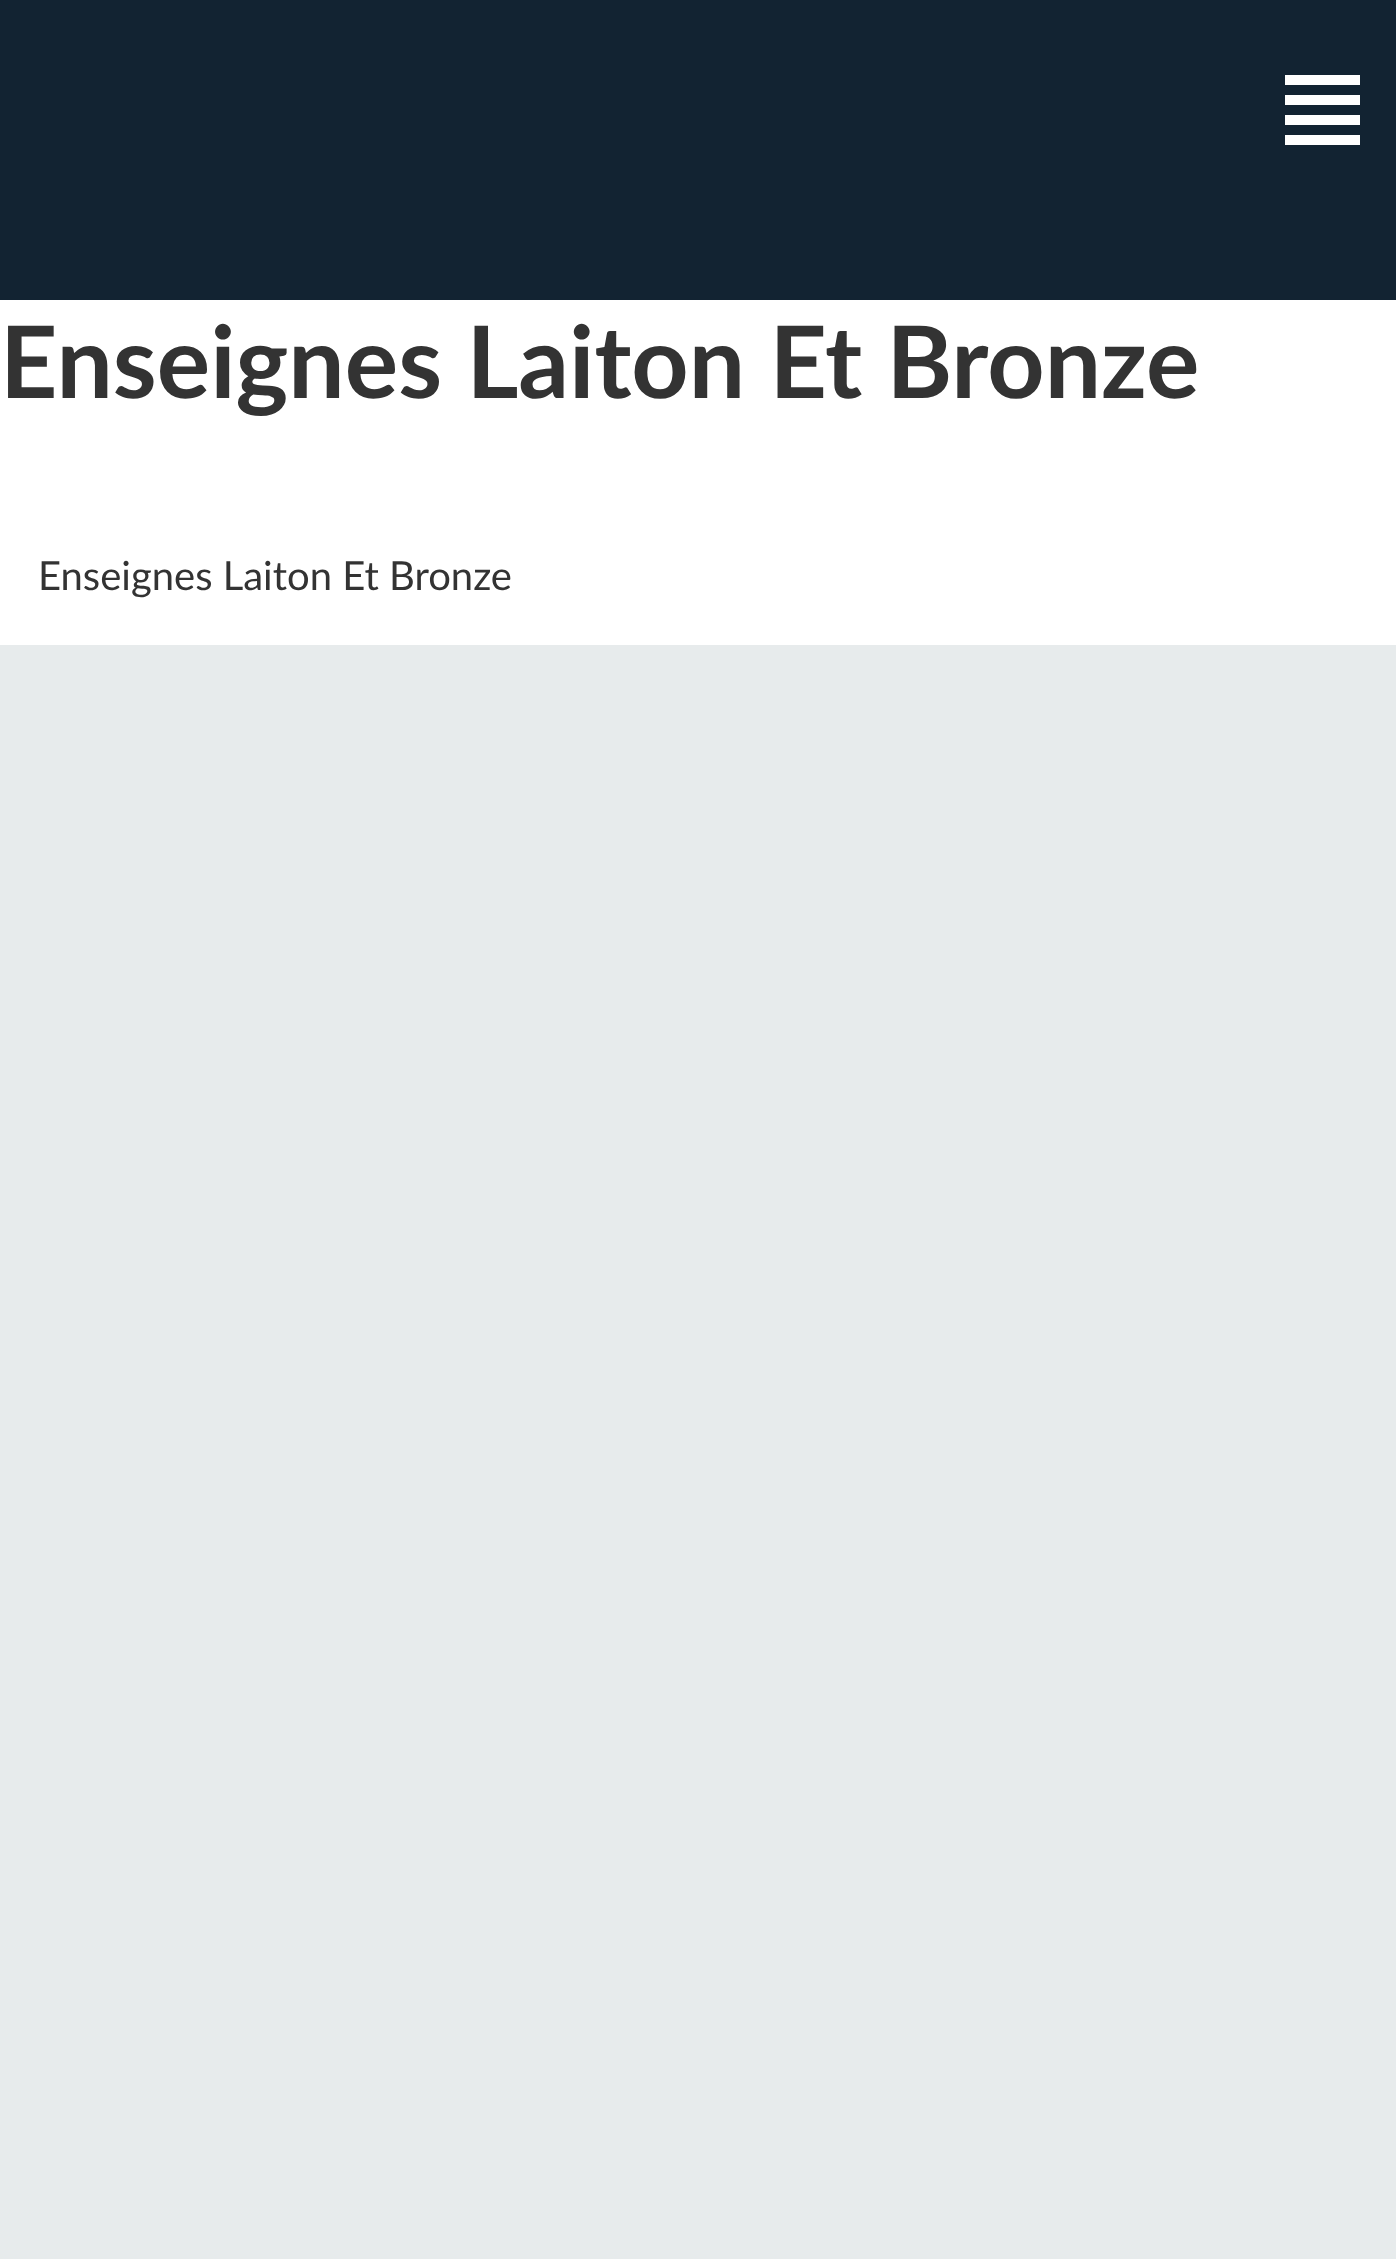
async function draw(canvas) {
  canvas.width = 1396;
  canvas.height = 2259;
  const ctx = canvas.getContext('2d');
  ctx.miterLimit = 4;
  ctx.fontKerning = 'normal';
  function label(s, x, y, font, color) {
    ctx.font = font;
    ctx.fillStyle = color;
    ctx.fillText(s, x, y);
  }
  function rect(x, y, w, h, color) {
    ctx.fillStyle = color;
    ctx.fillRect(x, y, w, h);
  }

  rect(0, 0, 1396, 2259, '#fff');
  rect(0, 0, 1396, 300, '#122332');
  rect(1285, 75, 75, 10, '#fff');
  rect(1285, 95, 75, 10, '#fff');
  rect(1285, 115, 75, 10, '#fff');
  rect(1285, 135, 75, 10, '#fff');
  label('Enseignes Laiton Et Bronze', 0, 398, 'bold 100px Lato', '#333');
  label('Enseignes Laiton Et Bronze', 38, 590, '40px Lato', '#333');
  rect(0, 645, 1396, 1614, '#e7ebec');
}

draw(document.querySelector('canvas'));
